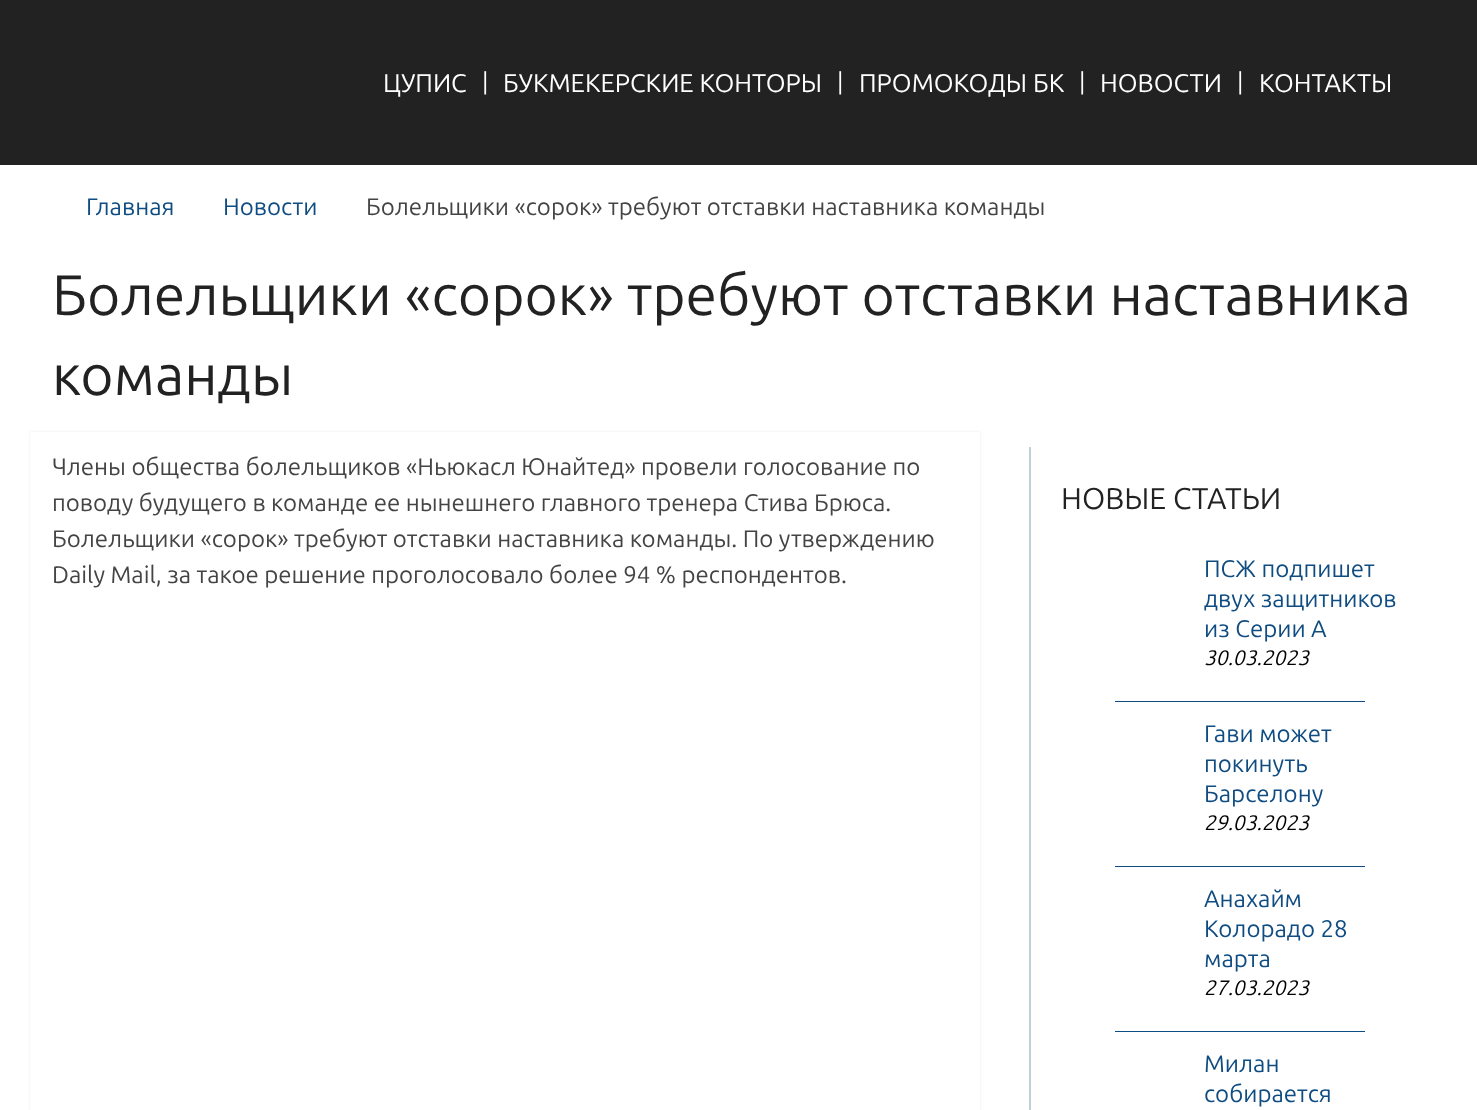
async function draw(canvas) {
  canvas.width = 1477;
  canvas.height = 1110;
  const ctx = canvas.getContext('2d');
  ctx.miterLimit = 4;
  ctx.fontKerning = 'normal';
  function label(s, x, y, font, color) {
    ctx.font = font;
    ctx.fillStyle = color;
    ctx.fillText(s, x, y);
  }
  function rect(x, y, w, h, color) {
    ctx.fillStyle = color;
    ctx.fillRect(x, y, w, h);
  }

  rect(0, 0, 1477, 1110, '#fff');
  rect(0, 0, 1477, 165, '#222');
  label('ЦУПИС', 383, 92, '25.5px Ubuntu', '#fff');
  label('|', 482, 90, '24px Ubuntu', '#fff');
  label('БУКМЕКЕРСКИЕ КОНТОРЫ', 503, 92, '25.5px Ubuntu', '#fff');
  label('|', 837, 90, '24px Ubuntu', '#fff');
  label('ПРОМОКОДЫ БК', 859, 92, '25.5px Ubuntu', '#fff');
  label('|', 1079, 90, '24px Ubuntu', '#fff');
  label('НОВОСТИ', 1100, 92, '25.5px Ubuntu', '#fff');
  label('|', 1237, 90, '24px Ubuntu', '#fff');
  label('КОНТАКТЫ', 1259, 92, '25.5px Ubuntu', '#fff');
  label('Главная', 86, 215, '24px Ubuntu', '#0f4c81');
  label('Новости', 223, 215, '24px Ubuntu', '#0f4c81');
  label('Болельщики «сорок» требуют отставки наставника команды', 366, 215, '24px Ubuntu', '#444');
  label('Болельщики «сорок» требуют отставки наставника', 52, 315, '57px Ubuntu', '#222');
  label('команды', 52, 395, '57px Ubuntu', '#222');
  ctx.fillStyle = '#3232321a';
  ctx.filter = 'blur(1px)';
  ctx.beginPath();
  ctx.rect(30, 432, 950, 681);
  ctx.fill();
  ctx.filter = 'none';
  rect(30, 432, 950, 678, '#fff');
  label('Члены общества болельщиков «Ньюкасл Юнайтед» провели голосование по', 52, 475, '24px Ubuntu', '#444');
  label('поводу будущего в команде ее нынешнего главного тренера Стива Брюса.', 52, 511, '24px Ubuntu', '#444');
  label('Болельщики «сорок» требуют отставки наставника команды. По утверждению', 52, 547, '24px Ubuntu', '#444');
  label('Daily Mail, за такое решение проголосовало более 94 % респондентов.', 52, 583, '24px Ubuntu', '#444');
  rect(1029, 447, 2, 663, '#c2ced8');
  label('НОВЫЕ СТАТЬИ', 1061, 509, '30px Ubuntu', '#222');
  label('ПСЖ подпишет', 1204, 577, '24px Ubuntu', '#0f4c81');
  label('двух защитников', 1204, 607, '24px Ubuntu', '#0f4c81');
  label('из Серии A', 1204, 637, '24px Ubuntu', '#0f4c81');
  label('30.03.2023', 1204, 665, 'italic 21px Ubuntu', '#000');
  rect(1115, 701, 250, 1, '#0f4c81');
  label('Гави может', 1204, 742, '24px Ubuntu', '#0f4c81');
  label('покинуть', 1204, 772, '24px Ubuntu', '#0f4c81');
  label('Барселону', 1204, 802, '24px Ubuntu', '#0f4c81');
  label('29.03.2023', 1204, 830, 'italic 21px Ubuntu', '#000');
  rect(1115, 866, 250, 1, '#0f4c81');
  label('Анахайм', 1204, 907, '24px Ubuntu', '#0f4c81');
  label('Колорадо 28', 1204, 937, '24px Ubuntu', '#0f4c81');
  label('марта', 1204, 967, '24px Ubuntu', '#0f4c81');
  label('27.03.2023', 1204, 995, 'italic 21px Ubuntu', '#000');
  rect(1115, 1031, 250, 1, '#0f4c81');
  label('Милан', 1204, 1072, '24px Ubuntu', '#0f4c81');
  label('собирается', 1204, 1102, '24px Ubuntu', '#0f4c81');
}

draw(document.querySelector('canvas'));
